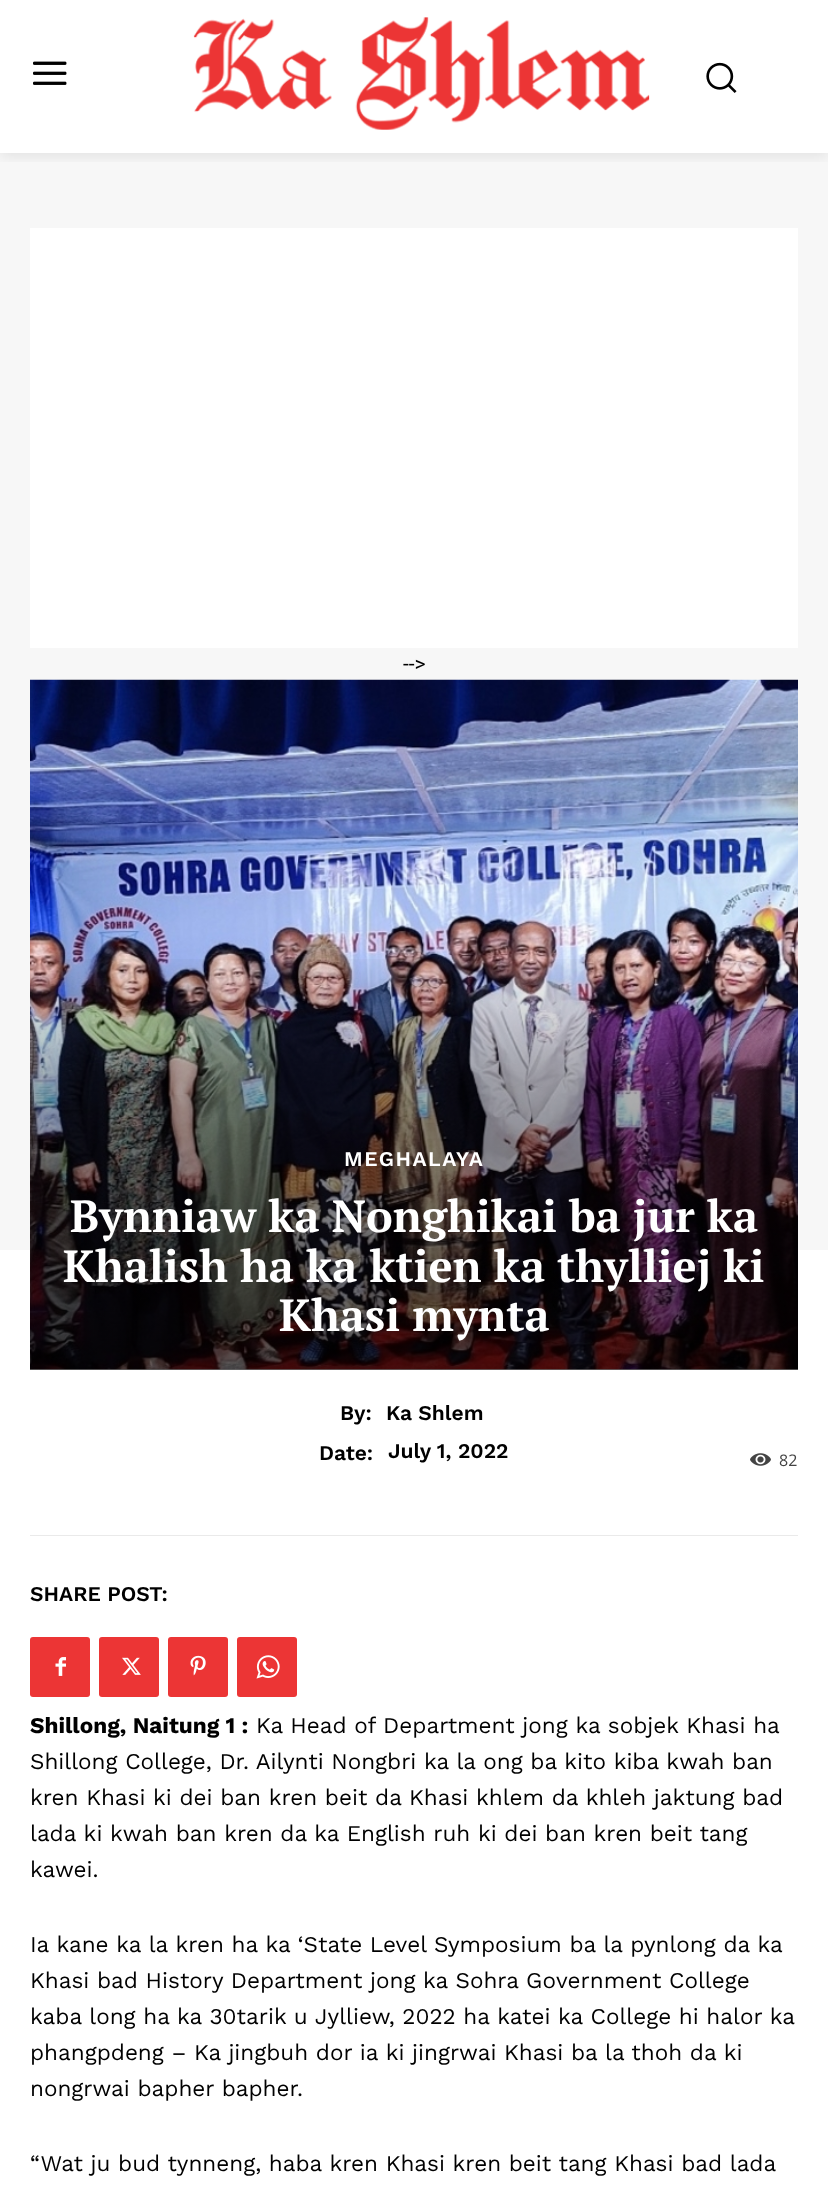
async function draw(canvas) {
  canvas.width = 828;
  canvas.height = 2186;
  const ctx = canvas.getContext('2d');
  ctx.miterLimit = 4;
  ctx.fontKerning = 'normal';
  function label(s, x, y, font, color) {
    ctx.font = font;
    ctx.fillStyle = color;
    ctx.fillText(s, x, y);
  }
  function rect(x, y, w, h, color) {
    ctx.fillStyle = color;
    ctx.fillRect(x, y, w, h);
  }
  function roundedRect(x, y, w, h, r, color) {
    ctx.fillStyle = color;
    ctx.beginPath();
    ctx.roundRect(x, y, w, h, r);
    ctx.fill();
  }
  async function image(src, x, y, w, h) {
    const img = new Image();
    img.src = src;
    await img.decode();
    ctx.drawImage(img, x, y, w, h);
  }
  let gradient;

  rect(0, 0, 828, 2186, '#fff');
  await image('assets/img1.png', 33, 61, 34, 24);
  await image('assets/img2.png', 193, 17, 457, 113);
  await image('assets/img3.png', 706, 62, 31, 31);
  rect(0, 153, 828, 1097, '#f7f7f7');
  ctx.save();
  ctx.beginPath();
  ctx.rect(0, 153, 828, 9);
  ctx.clip();
  ctx.fillStyle = '#00000017';
  ctx.filter = 'blur(7.5px)';
  ctx.beginPath();
  ctx.rect(0, 3, 828, 153);
  ctx.fill();
  ctx.filter = 'none';
  ctx.restore();
  rect(30, 228, 768, 420, '#fff');
  label('-->', 403, 671, '21px Roboto', '#000');
  await image('assets/img4.png', 30, 679, 768, 691);
  gradient = ctx.createLinearGradient(414, 1370, 414, 680);
  gradient.addColorStop(0, '#00000099');
  gradient.addColorStop(0.42, '#0000004d');
  gradient.addColorStop(0.61, '#00000000');
  gradient.addColorStop(1, '#00000000');
  ctx.fillStyle = gradient;
  ctx.fillRect(30, 959, 768, 411);
  ctx.letterSpacing = '1.5px';
  label('MEGHALAYA', 344, 1166, '600 21px Work Sans', '#fff');
  ctx.letterSpacing = '0px';
  label('Bynniaw ka Nonghikai ba jur ka', 70, 1232, 'bold 45px PT Serif', '#fff');
  label('Khalish ha ka ktien ka thylliej ki', 63, 1282, 'bold 45px PT Serif', '#fff');
  label('Khasi mynta', 279, 1331, 'bold 45px PT Serif', '#fff');
  label('By:', 340, 1420, '600 21px Work Sans', '#000');
  label('Ka Shlem', 386, 1420, '600 21px Work Sans', '#000');
  label('Date:', 319, 1460, '600 21px Work Sans', '#000');
  label('July 1, 2022', 388, 1458, '600 21px Work Sans', '#000');
  await image('assets/img5.png', 750, 1453, 21, 13);
  label('82', 779, 1466, '16px Open Sans', '#444');
  rect(30, 1535, 768, 1, '#eaeaea');
  label('SHARE POST:', 30, 1601, '600 21px Work Sans', '#000');
  roundedRect(30, 1637, 60, 60, 3, '#ec3535');
  await image('assets/img6.png', 55, 1657, 11, 19);
  roundedRect(99, 1637, 60, 60, 3, '#ec3535');
  await image('assets/img7.png', 122, 1657, 19, 18);
  roundedRect(168, 1637, 60, 60, 3, '#ec3535');
  await image('assets/img8.png', 190, 1655, 16, 21);
  roundedRect(237, 1637, 60, 60, 3, '#ec3535');
  await image('assets/img9.png', 256, 1655, 24, 24);
  label('Shillong, Naitung 1 :', 30, 1733, 'bold 22.5px Work Sans', '#000');
  label('Ka Head of Department jong ka sobjek Khasi ha', 256, 1733, '22.5px Work Sans', '#000');
  label('Shillong College, Dr. Ailynti Nongbri ka la ong ba kito kiba kwah ban', 30, 1769, '22.5px Work Sans', '#000');
  label('kren Khasi ki dei ban kren beit da Khasi khlem da khleh jaktung bad', 30, 1805, '22.5px Work Sans', '#000');
  label('lada ki kwah ban kren da ka English ruh ki dei ban kren beit tang', 30, 1841, '22.5px Work Sans', '#000');
  label('kawei.', 30, 1877, '22.5px Work Sans', '#000');
  label('Ia kane ka la kren ha ka ‘State Level Symposium ba la pynlong da ka', 30, 1952, '22.5px Work Sans', '#000');
  label('Khasi bad History Department jong ka Sohra Government College', 30, 1988, '22.5px Work Sans', '#000');
  label('kaba long ha ka 30tarik u Jylliew, 2022 ha katei ka College hi halor ka', 30, 2024, '22.5px Work Sans', '#000');
  label('phangpdeng – Ka jingbuh dor ia ki jingrwai Khasi ba la thoh da ki', 30, 2060, '22.5px Work Sans', '#000');
  label('nongrwai bapher bapher.', 30, 2096, '22.5px Work Sans', '#000');
  label('“Wat ju bud tynneng, haba kren Khasi kren beit tang Khasi bad lada', 30, 2171, '22.5px Work Sans', '#000');
}

draw(document.querySelector('canvas'));
